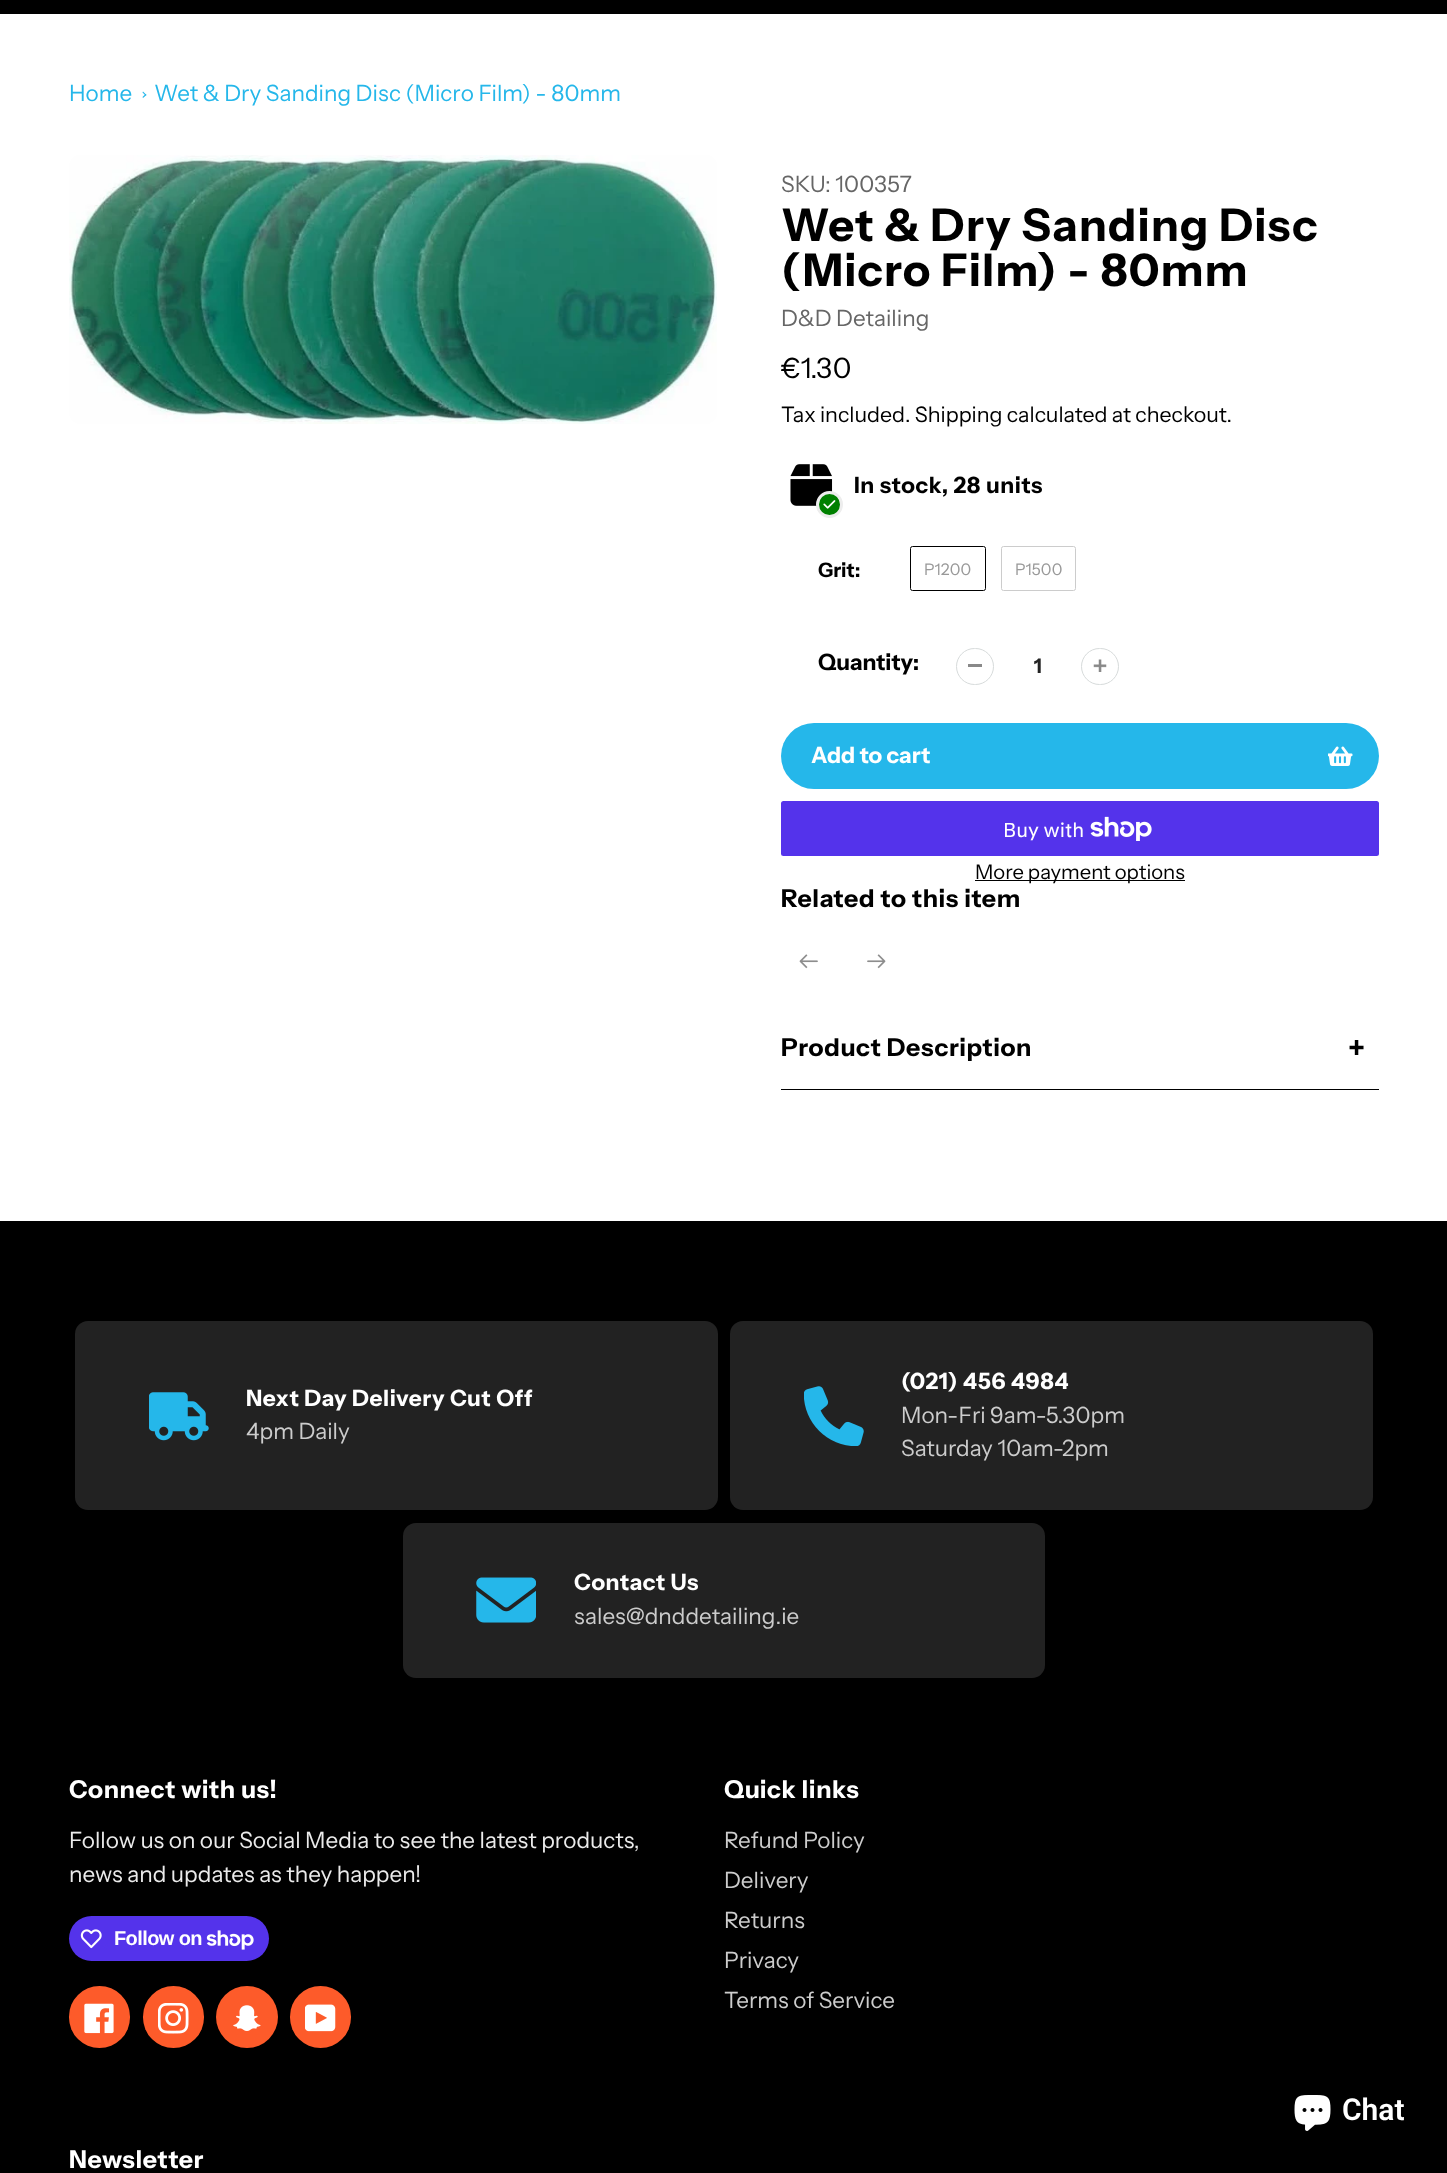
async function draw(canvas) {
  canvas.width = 1447;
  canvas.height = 2173;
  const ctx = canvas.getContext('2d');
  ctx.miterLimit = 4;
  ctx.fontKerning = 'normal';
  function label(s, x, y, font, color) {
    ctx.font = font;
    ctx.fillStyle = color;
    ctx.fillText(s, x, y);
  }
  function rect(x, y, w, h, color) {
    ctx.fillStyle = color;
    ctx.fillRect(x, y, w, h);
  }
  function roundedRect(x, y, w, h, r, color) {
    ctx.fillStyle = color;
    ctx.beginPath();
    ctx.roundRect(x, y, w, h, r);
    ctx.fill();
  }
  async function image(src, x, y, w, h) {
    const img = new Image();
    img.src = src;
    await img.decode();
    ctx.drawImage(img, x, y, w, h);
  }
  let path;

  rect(0, 0, 1447, 2173, '#fff');
  rect(0, 0, 1447, 14, '#000');
  label('Home', 69, 101, '22.5px Instrument Sans', '#25b7ea');
  path = new Path2D('M143 91.5L146.5 95L145.5 95.5L142.5 92.5Z');
  ctx.fill(path);
  path = new Path2D('M145.5 94L146.5 95L143 98L142.5 97Z');
  ctx.fill(path);
  label('Wet & Dry Sanding Disc (Micro Film) - 80mm', 154, 101, '22.5px Instrument Sans', '#25b7ea');
  await image('assets/img1.png', 69, 155, 648, 269);
  label('SKU: 100357', 781, 192, '22.5px Instrument Sans', '#666');
  ctx.letterSpacing = '1.25px';
  label('Wet & Dry Sanding Disc', 781, 241, 'bold 45px Instrument Sans', '#000');
  label('(Micro Film) - 80mm', 781, 286, 'bold 45px Instrument Sans', '#000');
  ctx.letterSpacing = '0px';
  label('D&D Detailing', 781, 326, '22.5px Instrument Sans', '#666');
  label('€1.30', 781, 378, '28px Instrument Sans', '#000');
  label('Tax included. Shipping calculated at checkout.', 781, 422, '21.4px Instrument Sans', '#000');
  await image('assets/img2.png', 790, 464, 43, 42);
  ctx.fillStyle = '#008000';
  ctx.beginPath();
  ctx.arc(829.5, 504.5, 12, 0, 2 * Math.PI);
  ctx.fill();
  ctx.strokeStyle = '#ededed';
  ctx.lineWidth = 3;
  ctx.stroke();
  await image('assets/img3.png', 823, 500, 13, 9);
  ctx.letterSpacing = '0.6px';
  label('In stock, 28 units', 854, 493, 'bold 22.5px Instrument Sans', '#000');
  ctx.letterSpacing = '0px';
  label('Grit:', 818, 577, 'bold 20px Instrument Sans', '#000');
  ctx.beginPath();
  ctx.roundRect(910.5, 546.5, 75, 44, 2);
  ctx.strokeStyle = '#000';
  ctx.lineWidth = 1;
  ctx.stroke();
  label('P1200', 924, 575, '16px Instrument Sans', '#999');
  ctx.beginPath();
  ctx.roundRect(1001.5, 546.5, 74, 44, 2);
  ctx.strokeStyle = '#ccc';
  ctx.stroke();
  label('P1500', 1015, 575, '16px Instrument Sans', '#999');
  label('Quantity:', 818, 670, 'bold 22.5px Instrument Sans', '#000');
  rect(968, 664, 14, 3, '#898989');
  ctx.beginPath();
  ctx.roundRect(956.5, 648.5, 37, 36, 18);
  ctx.strokeStyle = '#d7dbdb';
  ctx.stroke();
  label('1', 1034, 673, 'bold 20px Instrument Sans', '#232323');
  await image('assets/img4.png', 1093, 659, 14, 13);
  ctx.beginPath();
  ctx.roundRect(1081.5, 648.5, 37, 36, 18);
  ctx.stroke();
  roundedRect(781, 723, 598, 66, 33, '#25b7ea');
  label('Add to cart', 811, 763, 'bold 22.5px Instrument Sans', '#fff');
  await image('assets/img5.png', 1328, 746, 25, 20);
  roundedRect(781, 801, 598, 55, 2.5, '#5433eb');
  label('Buy with', 1003, 837, '20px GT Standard', '#fff');
  await image('assets/img6.png', 1090, 816, 62, 25);
  rect(975, 880, 210, 1, '#000');
  label('More payment options', 975, 879, '20.25px Instrument Sans', '#000');
  ctx.letterSpacing = '0.6px';
  label('Related to this item', 781, 907, 'bold 24.75px Instrument Sans', '#000');
  await image('assets/img7.png', 799, 954, 19, 15);
  await image('assets/img8.png', 867, 954, 19, 15);
  rect(781, 1089, 598, 1, '#000');
  label('Product Description', 781, 1056, 'bold 24.75px Instrument Sans', '#000');
  label('+', 1348, 1059, 'bold 31px Instrument Sans', '#000');
  rect(0, 1221, 1447, 952, '#000');
  roundedRect(75, 1321, 643, 189, 13, '#222');
  await image('assets/img9.png', 149, 1392, 60, 49);
  label('Next Day Delivery Cut Off', 246, 1406, 'bold 22.5px Instrument Sans', '#fff');
  ctx.letterSpacing = '0px';
  label('4pm Daily', 246, 1439, '22.5px Instrument Sans', '#ccc');
  roundedRect(730, 1321, 643, 189, 13, '#222');
  await image('assets/img10.png', 804, 1386, 60, 60);
  ctx.letterSpacing = '0.6px';
  label('(021) 456 4984', 901, 1389, 'bold 22.5px Instrument Sans', '#fff');
  ctx.letterSpacing = '0px';
  label('Mon-Fri 9am-5.30pm', 901, 1423, '22.5px Instrument Sans', '#ccc');
  label('Saturday 10am-2pm', 901, 1456, '22.5px Instrument Sans', '#ccc');
  roundedRect(403, 1523, 642, 155, 13, '#222');
  await image('assets/img11.png', 476, 1577, 60, 46);
  ctx.letterSpacing = '0.6px';
  label('Contact Us', 574, 1590, 'bold 22.5px Instrument Sans', '#fff');
  ctx.letterSpacing = '0px';
  label('sales@dnddetailing.ie', 574, 1624, '22.5px Instrument Sans', '#ccc');
  ctx.letterSpacing = '0.6px';
  label('Connect with us!', 69, 1798, 'bold 24.75px Instrument Sans', '#fff');
  ctx.letterSpacing = '0px';
  label('Follow us on our Social Media to see the latest products,', 69, 1848, '22.5px Instrument Sans', '#ebebeb');
  label('news and updates as they happen!', 69, 1882, '22.5px Instrument Sans', '#ebebeb');
  roundedRect(69, 1916, 200, 45, 22.5, '#5433eb');
  await image('assets/img12.png', 80, 1929, 22, 20);
  ctx.letterSpacing = '-0.6px';
  label('Follow on', 114, 1945, 'bold 20px Liberation Sans', '#fff');
  await image('assets/img13.png', 206, 1930, 48, 20);
  roundedRect(69, 1986, 61, 62, 30.5, '#fd5b2a');
  await image('assets/img14.png', 84, 2003, 30, 31);
  roundedRect(143, 1986, 61, 62, 30.5, '#fd5b2a');
  await image('assets/img15.png', 158, 2003, 31, 31);
  ctx.beginPath();
  ctx.arc(247, 2017, 31, 0, 2 * Math.PI);
  ctx.fill();
  await image('assets/img16.png', 233, 2005, 28, 26);
  roundedRect(290, 1986, 61, 62, 30.5, '#fd5b2a');
  await image('assets/img17.png', 305, 2004, 31, 28);
  ctx.letterSpacing = '0.6px';
  label('Quick links', 724, 1798, 'bold 24.75px Instrument Sans', '#fff');
  ctx.letterSpacing = '0px';
  label('Refund Policy', 724, 1848, '22.5px Instrument Sans', '#ccc');
  label('Delivery', 724, 1888, '22.5px Instrument Sans', '#ccc');
  label('Returns', 724, 1928, '22.5px Instrument Sans', '#ccc');
  label('Privacy', 724, 1968, '22.5px Instrument Sans', '#ccc');
  label('Terms of Service', 724, 2008, '22.5px Instrument Sans', '#ccc');
  ctx.letterSpacing = '0.6px';
  label('Newsletter', 69, 2168, 'bold 24.75px Instrument Sans', '#fff');
  await image('assets/img18.png', 1294, 2095, 37, 36);
  ctx.letterSpacing = '0px';
  label('Chat', 1342, 2120, '600 30px Roboto', '#fff');
}

draw(document.querySelector('canvas'));
